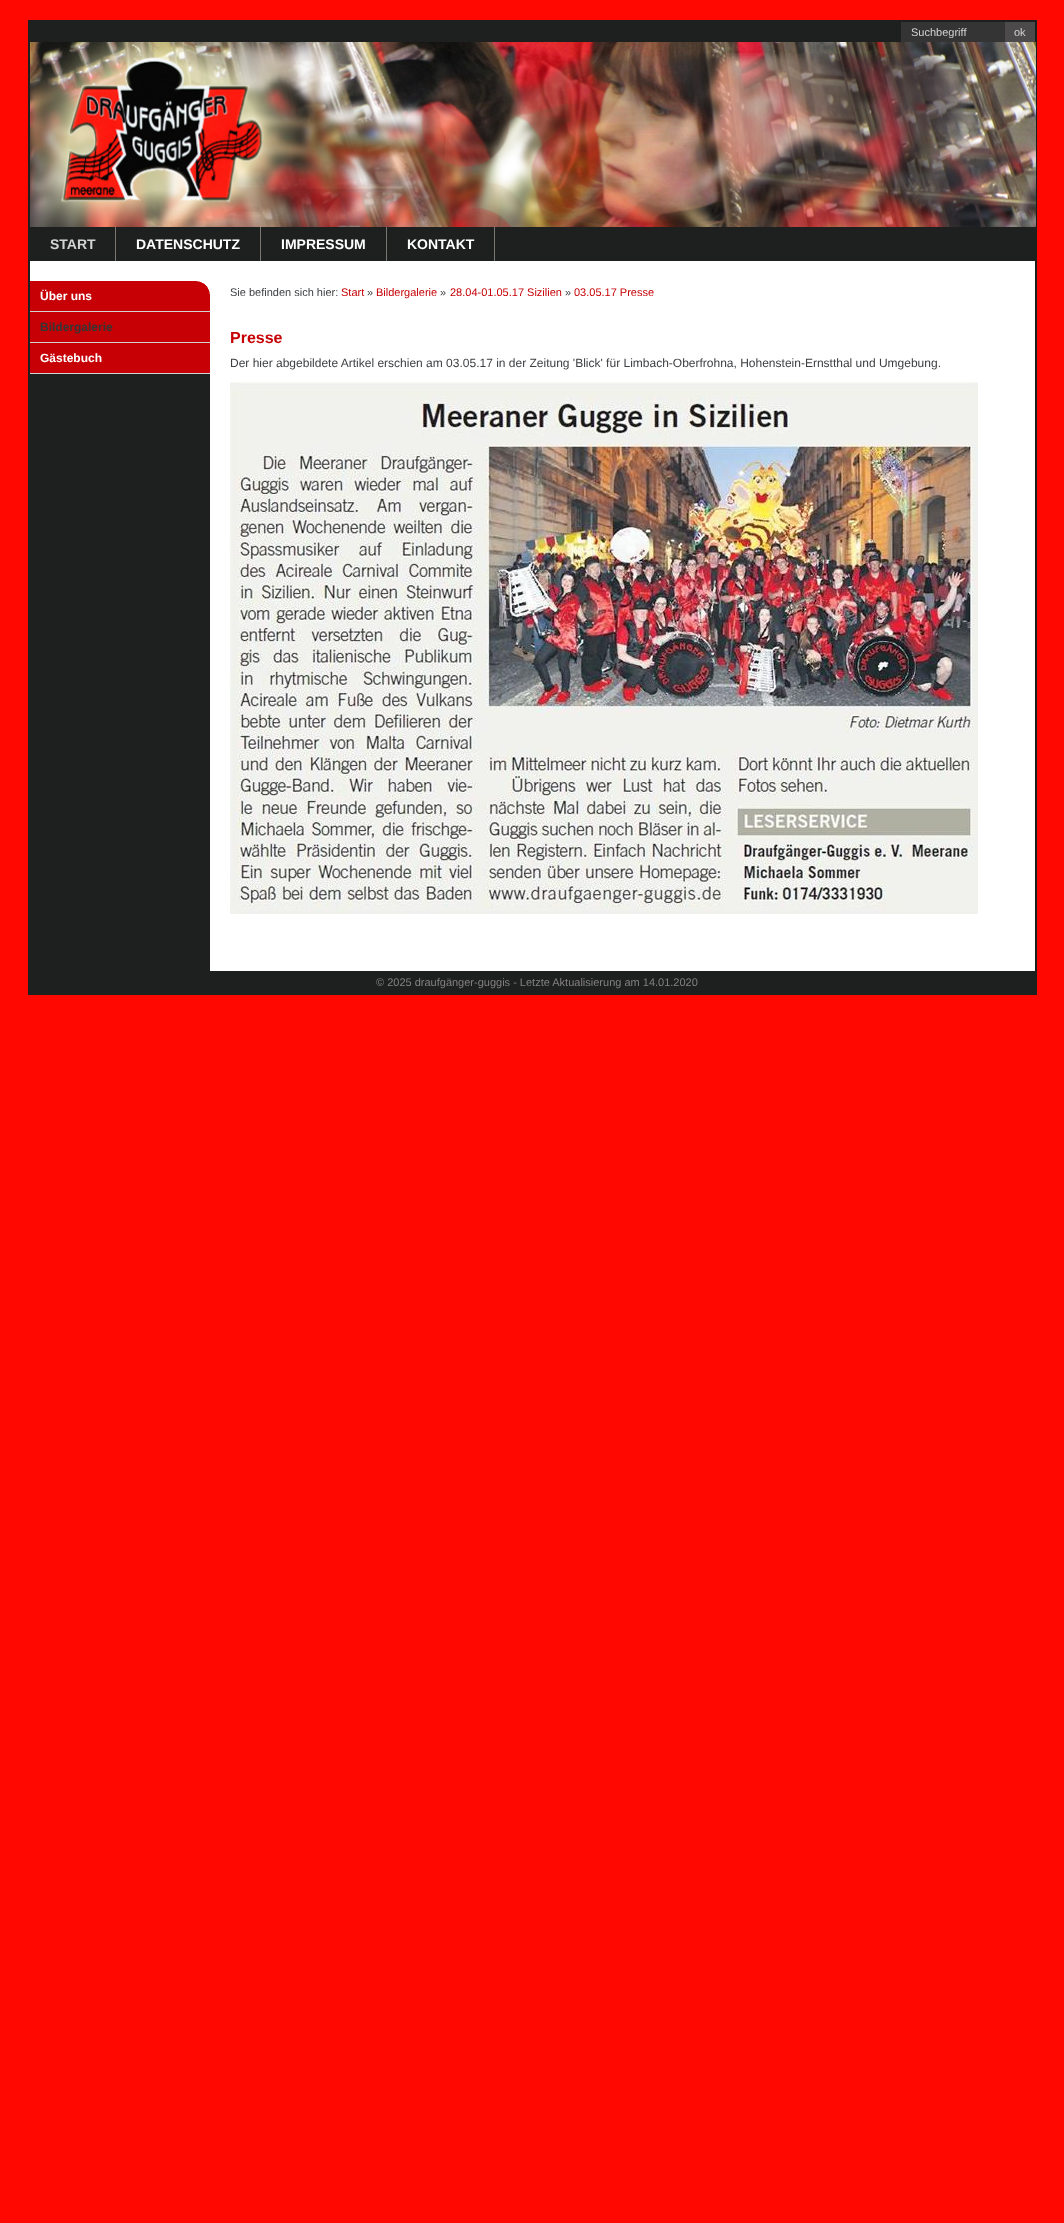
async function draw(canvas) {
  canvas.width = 1064;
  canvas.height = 2223;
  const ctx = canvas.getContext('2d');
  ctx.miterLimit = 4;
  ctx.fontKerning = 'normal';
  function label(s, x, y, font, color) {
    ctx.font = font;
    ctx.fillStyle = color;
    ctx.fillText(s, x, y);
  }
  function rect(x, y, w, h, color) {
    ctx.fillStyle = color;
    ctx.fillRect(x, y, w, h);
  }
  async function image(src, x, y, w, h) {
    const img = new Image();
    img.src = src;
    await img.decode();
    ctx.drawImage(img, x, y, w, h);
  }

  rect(0, 0, 1064, 2223, '#ff0802');
  ctx.strokeStyle = '#1e1f1f';
  ctx.lineWidth = 2;
  ctx.strokeRect(29, 21, 1007, 973);
  rect(30, 22, 871, 20, '#1e1f1f');
  rect(901, 22, 104, 20, '#353434');
  ctx.save();
  ctx.beginPath();
  ctx.rect(911, 26, 85, 12);
  ctx.clip();
  label('Suchbegriff', 911, 36, '11px Liberation Sans', '#d3d3d3');
  ctx.restore();
  rect(1005, 22, 30, 20, '#4c4a4a');
  label('ok', 1014, 36, '11px Liberation Sans', '#d3d3d3');
  rect(30, 261, 1005, 710, '#fff');
  await image('assets/img1.png', 30, 42, 1006, 185);
  rect(30, 227, 1005, 34, '#1e1f1f');
  rect(115, 227, 1, 34, '#7a7672');
  label('START', 50, 249, 'bold 14px Liberation Sans', '#d3d3d3');
  rect(260, 227, 1, 34, '#7a7672');
  label('DATENSCHUTZ', 136, 249, 'bold 14px Liberation Sans', '#fff');
  rect(386, 227, 1, 34, '#7a7672');
  label('IMPRESSUM', 281, 249, 'bold 14px Liberation Sans', '#fff');
  rect(494, 227, 1, 34, '#7a7672');
  label('KONTAKT', 407, 249, 'bold 14px Liberation Sans', '#fff');
  rect(30, 281, 180, 30, '#c60005');
  await image('assets/img2.png', 197, 281, 13, 13);
  rect(30, 311, 180, 1, '#d3d3d3');
  label('Über uns', 40, 300, 'bold 12px Liberation Sans', '#fff');
  rect(30, 312, 180, 30, '#c60005');
  rect(30, 342, 180, 1, '#d3d3d3');
  label('Bildergalerie', 40, 331, 'bold 12px Liberation Sans', '#363535');
  rect(30, 343, 180, 30, '#c60005');
  rect(30, 373, 180, 1, '#d3d3d3');
  label('Gästebuch', 40, 362, 'bold 12px Liberation Sans', '#fff');
  label('Sie befinden sich hier:', 230, 296, '11px Liberation Sans', '#3c3e41');
  label('Start', 341, 296, '11px Liberation Sans', '#c60005');
  label('»', 367, 296, '11px Liberation Sans', '#3c3e41');
  label('Bildergalerie', 376, 296, '11px Liberation Sans', '#c60005');
  label('»', 440, 296, '11px Liberation Sans', '#3c3e41');
  label('28.04-01.05.17 Sizilien', 450, 296, '11px Liberation Sans', '#c60005');
  label('»', 565, 296, '11px Liberation Sans', '#3c3e41');
  label('03.05.17 Presse', 574, 296, '11px Liberation Sans', '#c60005');
  label('Presse', 230, 343, 'bold 16px Liberation Sans', '#c60005');
  label('Der hier abgebildete Artikel erschien am 03.05.17 in der Zeitung \'Blick\' für Limbach-Oberfrohna, Hohenstein-Ernstthal und Umgebung.', 230, 367, '12px Liberation Sans', '#3c3e41');
  await image('assets/img3.png', 230, 381, 748, 533);
  rect(30, 374, 180, 597, '#1e1f1f');
  rect(30, 971, 1005, 22, '#1e1f1f');
  label('© 2025 draufgänger-guggis - Letzte Aktualisierung am 14.01.2020', 376, 986, '11px Liberation Sans', '#848181');
}

draw(document.querySelector('canvas'));
